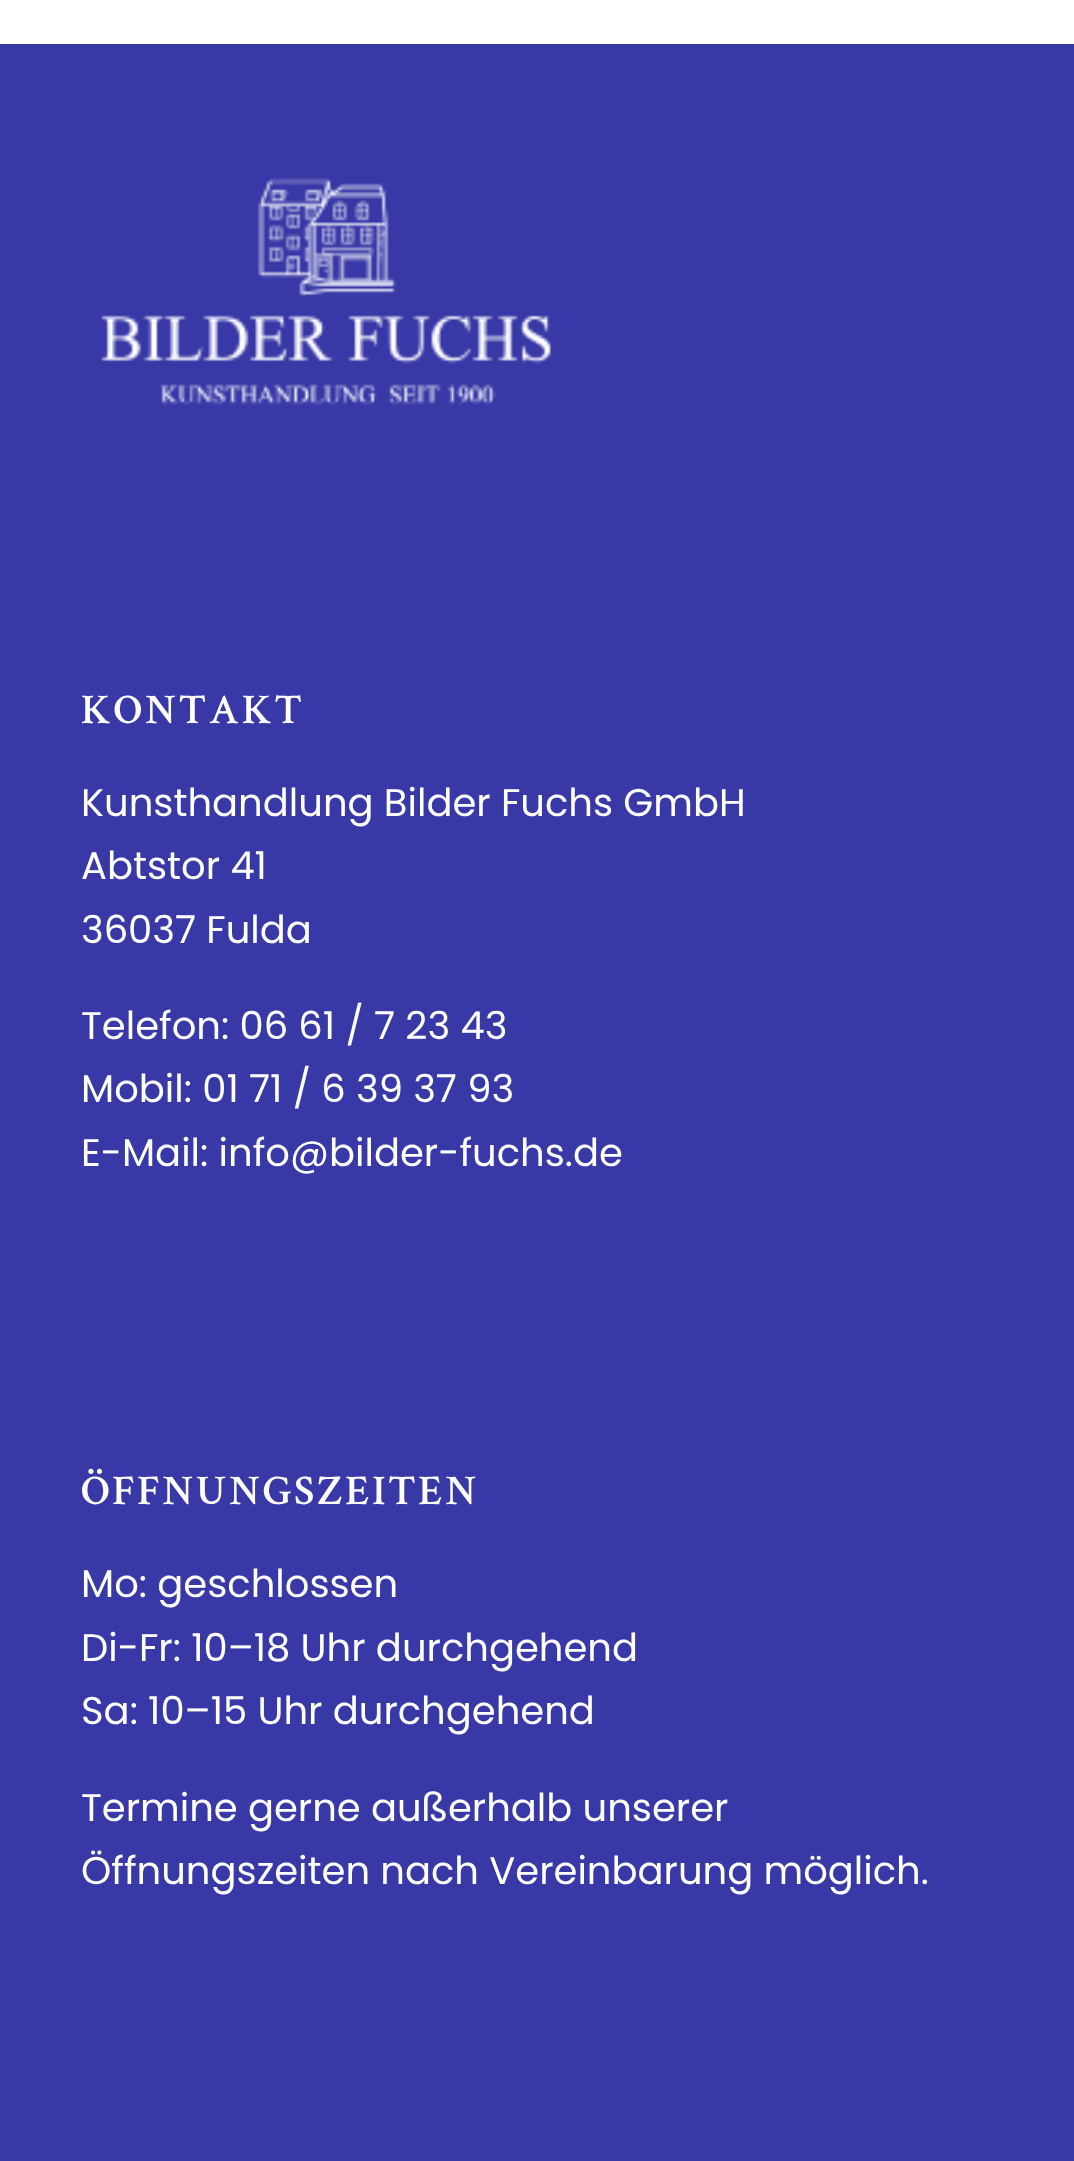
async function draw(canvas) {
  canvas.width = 1074;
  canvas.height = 2161;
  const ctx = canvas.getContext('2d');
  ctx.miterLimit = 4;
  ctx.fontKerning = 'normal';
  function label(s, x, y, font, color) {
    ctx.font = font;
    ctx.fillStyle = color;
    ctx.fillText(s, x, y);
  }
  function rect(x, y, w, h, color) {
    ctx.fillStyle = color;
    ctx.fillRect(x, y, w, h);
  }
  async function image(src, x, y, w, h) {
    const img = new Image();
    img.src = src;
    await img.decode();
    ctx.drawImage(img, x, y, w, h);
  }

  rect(0, 0, 1074, 2161, '#fff');
  rect(0, 44, 1074, 2117, '#3838a7');
  await image('assets/img1.png', 101, 178, 450, 227);
  ctx.letterSpacing = '2.75px';
  label('KONTAKT', 81, 723, '600 42.25px Crimson Text', '#fff');
  ctx.letterSpacing = '0px';
  label('Kunsthandlung Bilder Fuchs GmbH', 81, 816, '38.5px Poppins', '#fff');
  label('Abtstor 41', 81, 879, '38.5px Poppins', '#fff');
  label('36037 Fulda', 81, 943, '38.5px Poppins', '#fff');
  label('Telefon: 06 61 / 7 23 43', 81, 1039, '38.5px Poppins', '#fff');
  label('Mobil: 01 71 / 6 39 37 93', 81, 1102, '38.5px Poppins', '#fff');
  label('E-Mail: info@bilder-fuchs.de', 81, 1166, '38.5px Poppins', '#fff');
  ctx.letterSpacing = '2.75px';
  label('ÖFFNUNGSZEITEN', 81, 1504, '600 42.25px Crimson Text', '#fff');
  ctx.letterSpacing = '0px';
  label('Mo: geschlossen', 81, 1597, '38.5px Poppins', '#fff');
  label('Di-Fr: 10–18 Uhr durchgehend', 81, 1661, '38.5px Poppins', '#fff');
  label('Sa: 10–15 Uhr durchgehend', 81, 1724, '38.5px Poppins', '#fff');
  label('Termine gerne außerhalb unserer', 81, 1821, '38.5px Poppins', '#fff');
  label('Öffnungszeiten nach Vereinbarung möglich.', 81, 1884, '38.5px Poppins', '#fff');
}

draw(document.querySelector('canvas'));
